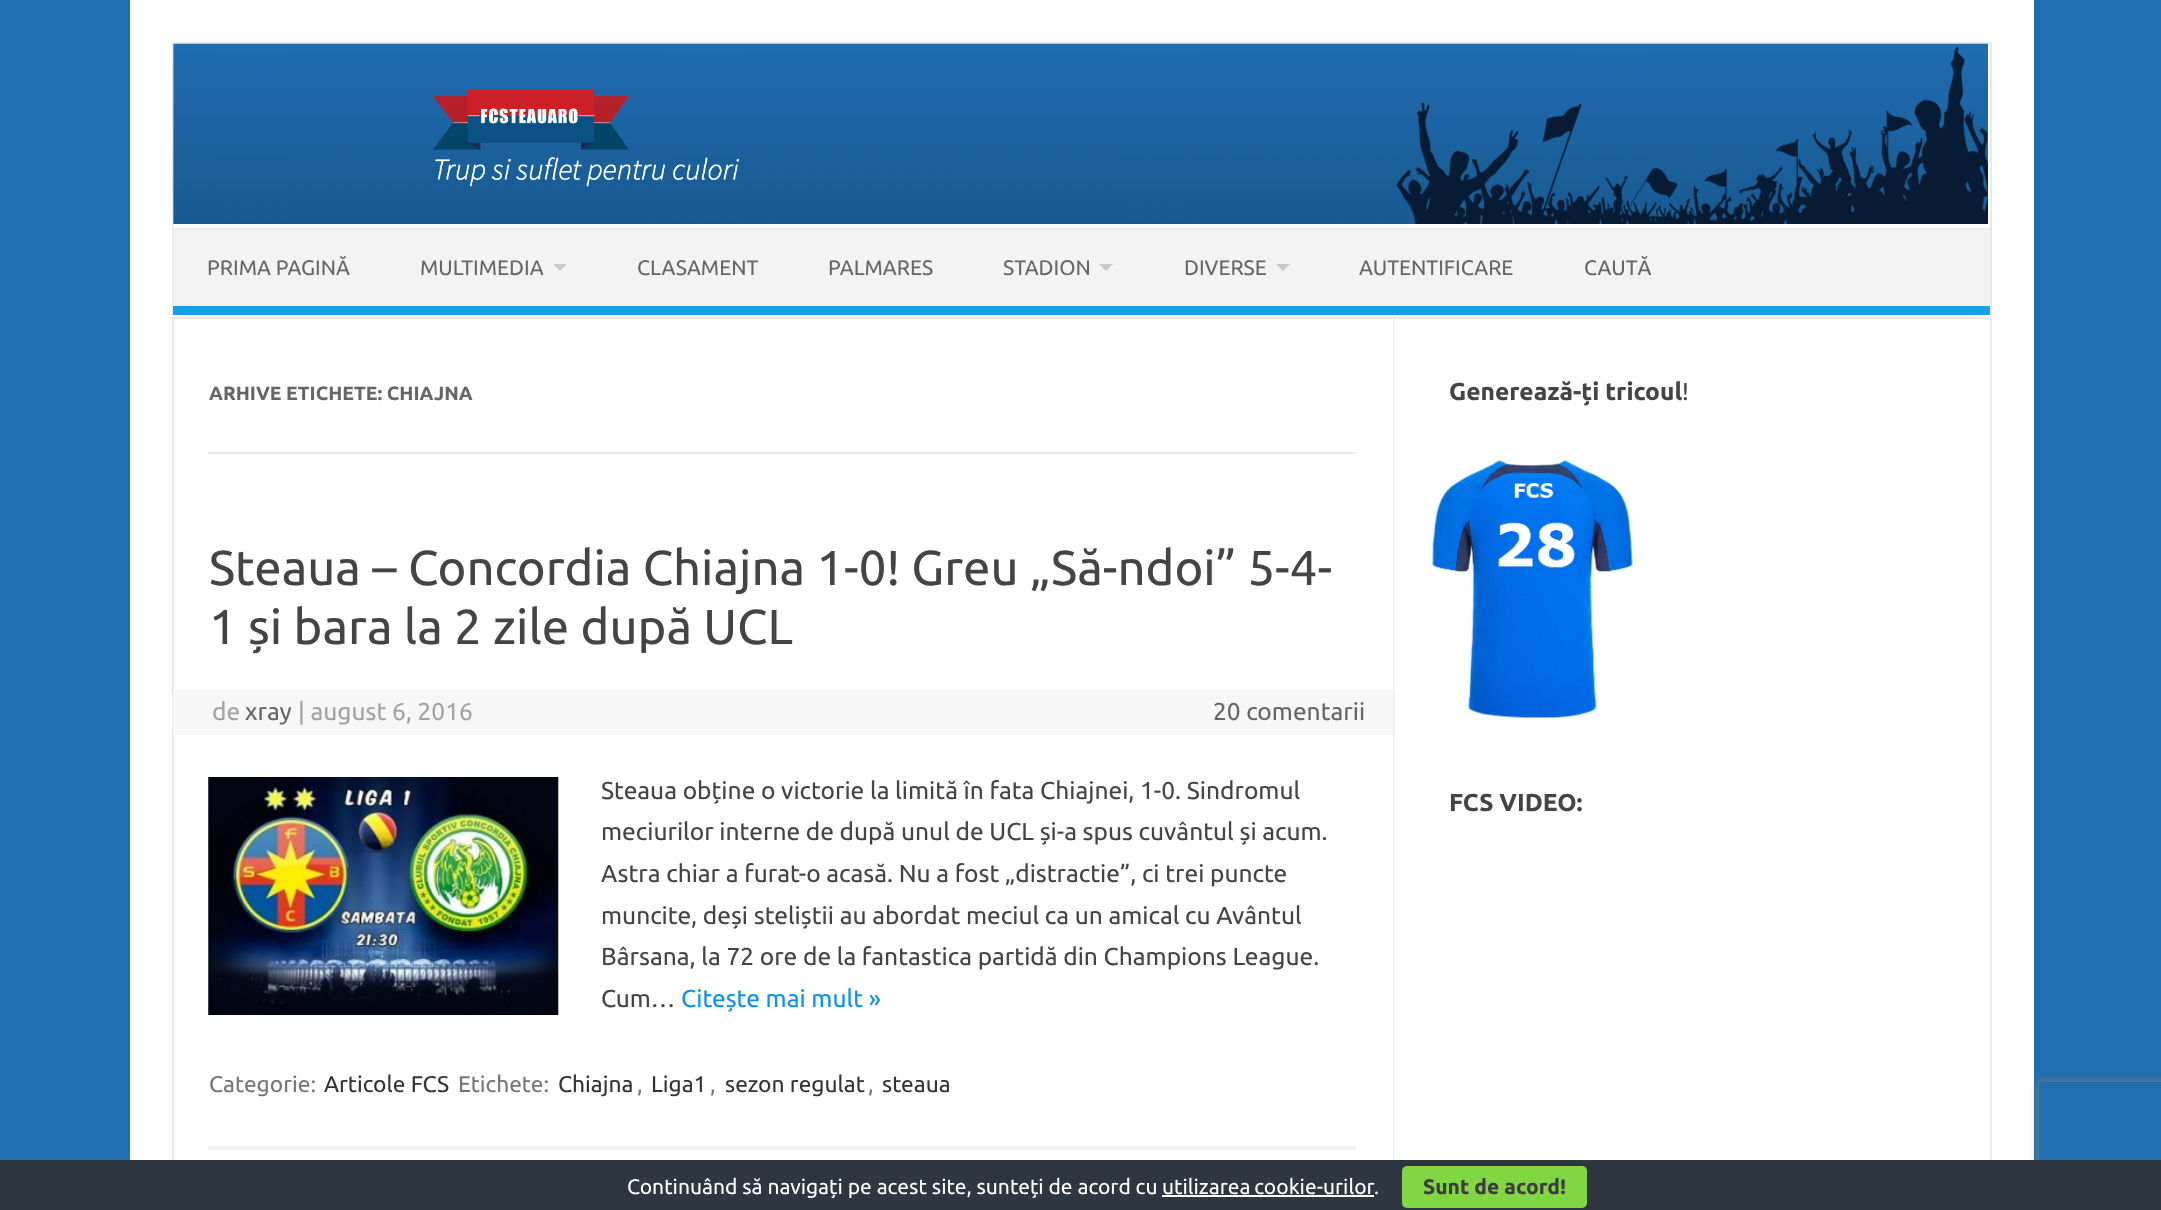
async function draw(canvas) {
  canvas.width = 2161;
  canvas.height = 1210;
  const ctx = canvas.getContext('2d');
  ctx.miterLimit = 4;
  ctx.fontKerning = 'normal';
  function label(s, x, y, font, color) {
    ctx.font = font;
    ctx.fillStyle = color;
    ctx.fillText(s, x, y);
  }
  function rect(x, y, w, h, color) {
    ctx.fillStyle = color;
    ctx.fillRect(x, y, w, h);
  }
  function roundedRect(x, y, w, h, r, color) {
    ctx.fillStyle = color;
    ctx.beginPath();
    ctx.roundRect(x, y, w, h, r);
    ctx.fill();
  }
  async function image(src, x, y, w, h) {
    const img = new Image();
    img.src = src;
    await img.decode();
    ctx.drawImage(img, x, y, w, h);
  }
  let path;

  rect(0, 0, 2161, 1210, '#1f6eb2');
  rect(130, 0, 1904, 1160, '#fff');
  rect(172, 42, 1820, 2, '#e9e9e9');
  rect(1990, 42, 2, 273, '#e9e9e9');
  rect(172, 42, 2, 273, '#e9e9e9');
  await image('assets/img1.png', 173, 43, 1815, 181);
  rect(173, 230, 1817, 76, '#f3f3f3');
  rect(173, 228, 1817, 2, '#ededed');
  rect(173, 306, 1817, 9, '#16a1e7');
  label('PRIMA PAGINĂ', 207, 275, '21px Ubuntu', '#666');
  label('MULTIMEDIA', 420, 275, '21px Ubuntu', '#666');
  ctx.fillStyle = '#c9c9c9';
  path = new Path2D('M553 264H567L560 271Z');
  ctx.fill(path);
  label('CLASAMENT', 637, 275, '21px Ubuntu', '#666');
  label('PALMARES', 828, 275, '21px Ubuntu', '#666');
  label('STADION', 1003, 275, '21px Ubuntu', '#666');
  ctx.fillStyle = '#c9c9c9';
  path = new Path2D('M1099 264H1113L1106 271Z');
  ctx.fill(path);
  label('DIVERSE', 1184, 275, '21px Ubuntu', '#666');
  ctx.fillStyle = '#c9c9c9';
  path = new Path2D('M1276 264H1290L1283 271Z');
  ctx.fill(path);
  label('AUTENTIFICARE', 1359, 275, '21px Ubuntu', '#666');
  label('CAUTĂ', 1584, 275, '21px Ubuntu', '#666');
  ctx.strokeStyle = '#e9e9e9';
  ctx.lineWidth = 2;
  ctx.strokeRect(173, 318, 1818, 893);
  rect(1393, 319, 2, 841, '#f1f1f1');
  rect(208, 452, 1148, 2, '#ededed');
  label('ARHIVE ETICHETE: CHIAJNA', 209, 400, 'bold 19.25px Ubuntu', '#666');
  rect(208, 1146, 1148, 4, '#f3f3f3');
  label('Steaua – Concordia Chiajna 1-0! Greu „Să-ndoi” 5-4-', 209, 585, '49px Ubuntu', '#444');
  label('1 și bara la 2 zile după UCL', 209, 644, '49px Ubuntu', '#444');
  rect(173, 690, 1220, 45, '#f7f7f7');
  label('de', 212, 720, '24.5px Ubuntu', '#a2a2a2');
  label('xray', 245, 720, '24.5px Ubuntu', '#666');
  label('| august 6, 2016', 298, 720, '24.5px Ubuntu', '#a2a2a2');
  label('20 comentarii', 1213, 720, '24.5px Ubuntu', '#666');
  await image('assets/img2.png', 208, 777, 351, 238);
  label('Steaua obține o victorie la limită în fata Chiajnei, 1-0. Sindromul', 601, 799, '24.5px Ubuntu', '#444');
  label('meciurilor interne de după unul de UCL și-a spus cuvântul și acum.', 601, 840, '24.5px Ubuntu', '#444');
  label('Astra chiar a furat-o acasă. Nu a fost „distractie”, ci trei puncte', 601, 882, '24.5px Ubuntu', '#444');
  label('muncite, deși steliștii au abordat meciul ca un amical cu Avântul', 601, 924, '24.5px Ubuntu', '#444');
  label('Bârsana, la 72 ore de la fantastica partidă din Champions League.', 601, 965, '24.5px Ubuntu', '#444');
  label('Cum…', 601, 1007, '24.5px Ubuntu', '#444');
  label('Citește mai mult »', 681, 1007, '24.5px Ubuntu', '#0b91ea');
  label('Categorie:', 209, 1092, '22.75px Ubuntu', '#757575');
  label('Articole FCS', 324, 1092, '22.75px Ubuntu', '#333');
  label('Etichete:', 458, 1092, '22.75px Ubuntu', '#757575');
  label('Chiajna', 558, 1092, '22.75px Ubuntu', '#333');
  label(',', 637, 1092, '22.75px Ubuntu', '#757575');
  label('Liga1', 651, 1092, '22.75px Ubuntu', '#333');
  label(',', 710, 1092, '22.75px Ubuntu', '#757575');
  label('sezon regulat', 725, 1092, '22.75px Ubuntu', '#333');
  label(',', 868, 1092, '22.75px Ubuntu', '#757575');
  label('steaua', 882, 1092, '22.75px Ubuntu', '#333');
  label('Generează-ți tricoul', 1449, 400, 'bold 24.5px Ubuntu', '#444');
  label('!', 1682, 400, '24.5px Ubuntu', '#444');
  await image('assets/img3.png', 1432, 460, 201, 259);
  label('FCS VIDEO:', 1449, 811, 'bold 24.5px Ubuntu', '#444');
  ctx.save();
  path = new Path2D('M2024 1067H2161V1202H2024ZM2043 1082H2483C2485 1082 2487 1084 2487 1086V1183C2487 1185 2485 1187 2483 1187H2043C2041 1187 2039 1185 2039 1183V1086C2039 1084 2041 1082 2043 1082Z');
  ctx.clip(path, 'evenodd');
  ctx.fillStyle = '#808080';
  ctx.filter = 'blur(4.5px)';
  ctx.beginPath();
  ctx.roundRect(2039, 1082, 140, 105, 4);
  ctx.fill();
  ctx.filter = 'none';
  ctx.restore();
  rect(0, 1160, 2161, 50, '#2e363f');
  label('Continuând să navigați pe acest site, sunteți de acord cu', 627, 1194, '21px Ubuntu', '#fff');
  ctx.wordSpacing = '-1px';
  label('utilizarea cookie-urilor', 1162, 1194, '21px Ubuntu', '#fff');
  rect(1162, 1195, 212, 2, '#fff');
  ctx.wordSpacing = '0px';
  label('.', 1374, 1194, '21px Ubuntu', '#fff');
  roundedRect(1402, 1166, 185, 42, 5, '#81d742');
  label('Sunt de acord!', 1423, 1194, 'bold 21px Ubuntu', '#3d3d3d');
}

draw(document.querySelector('canvas'));
